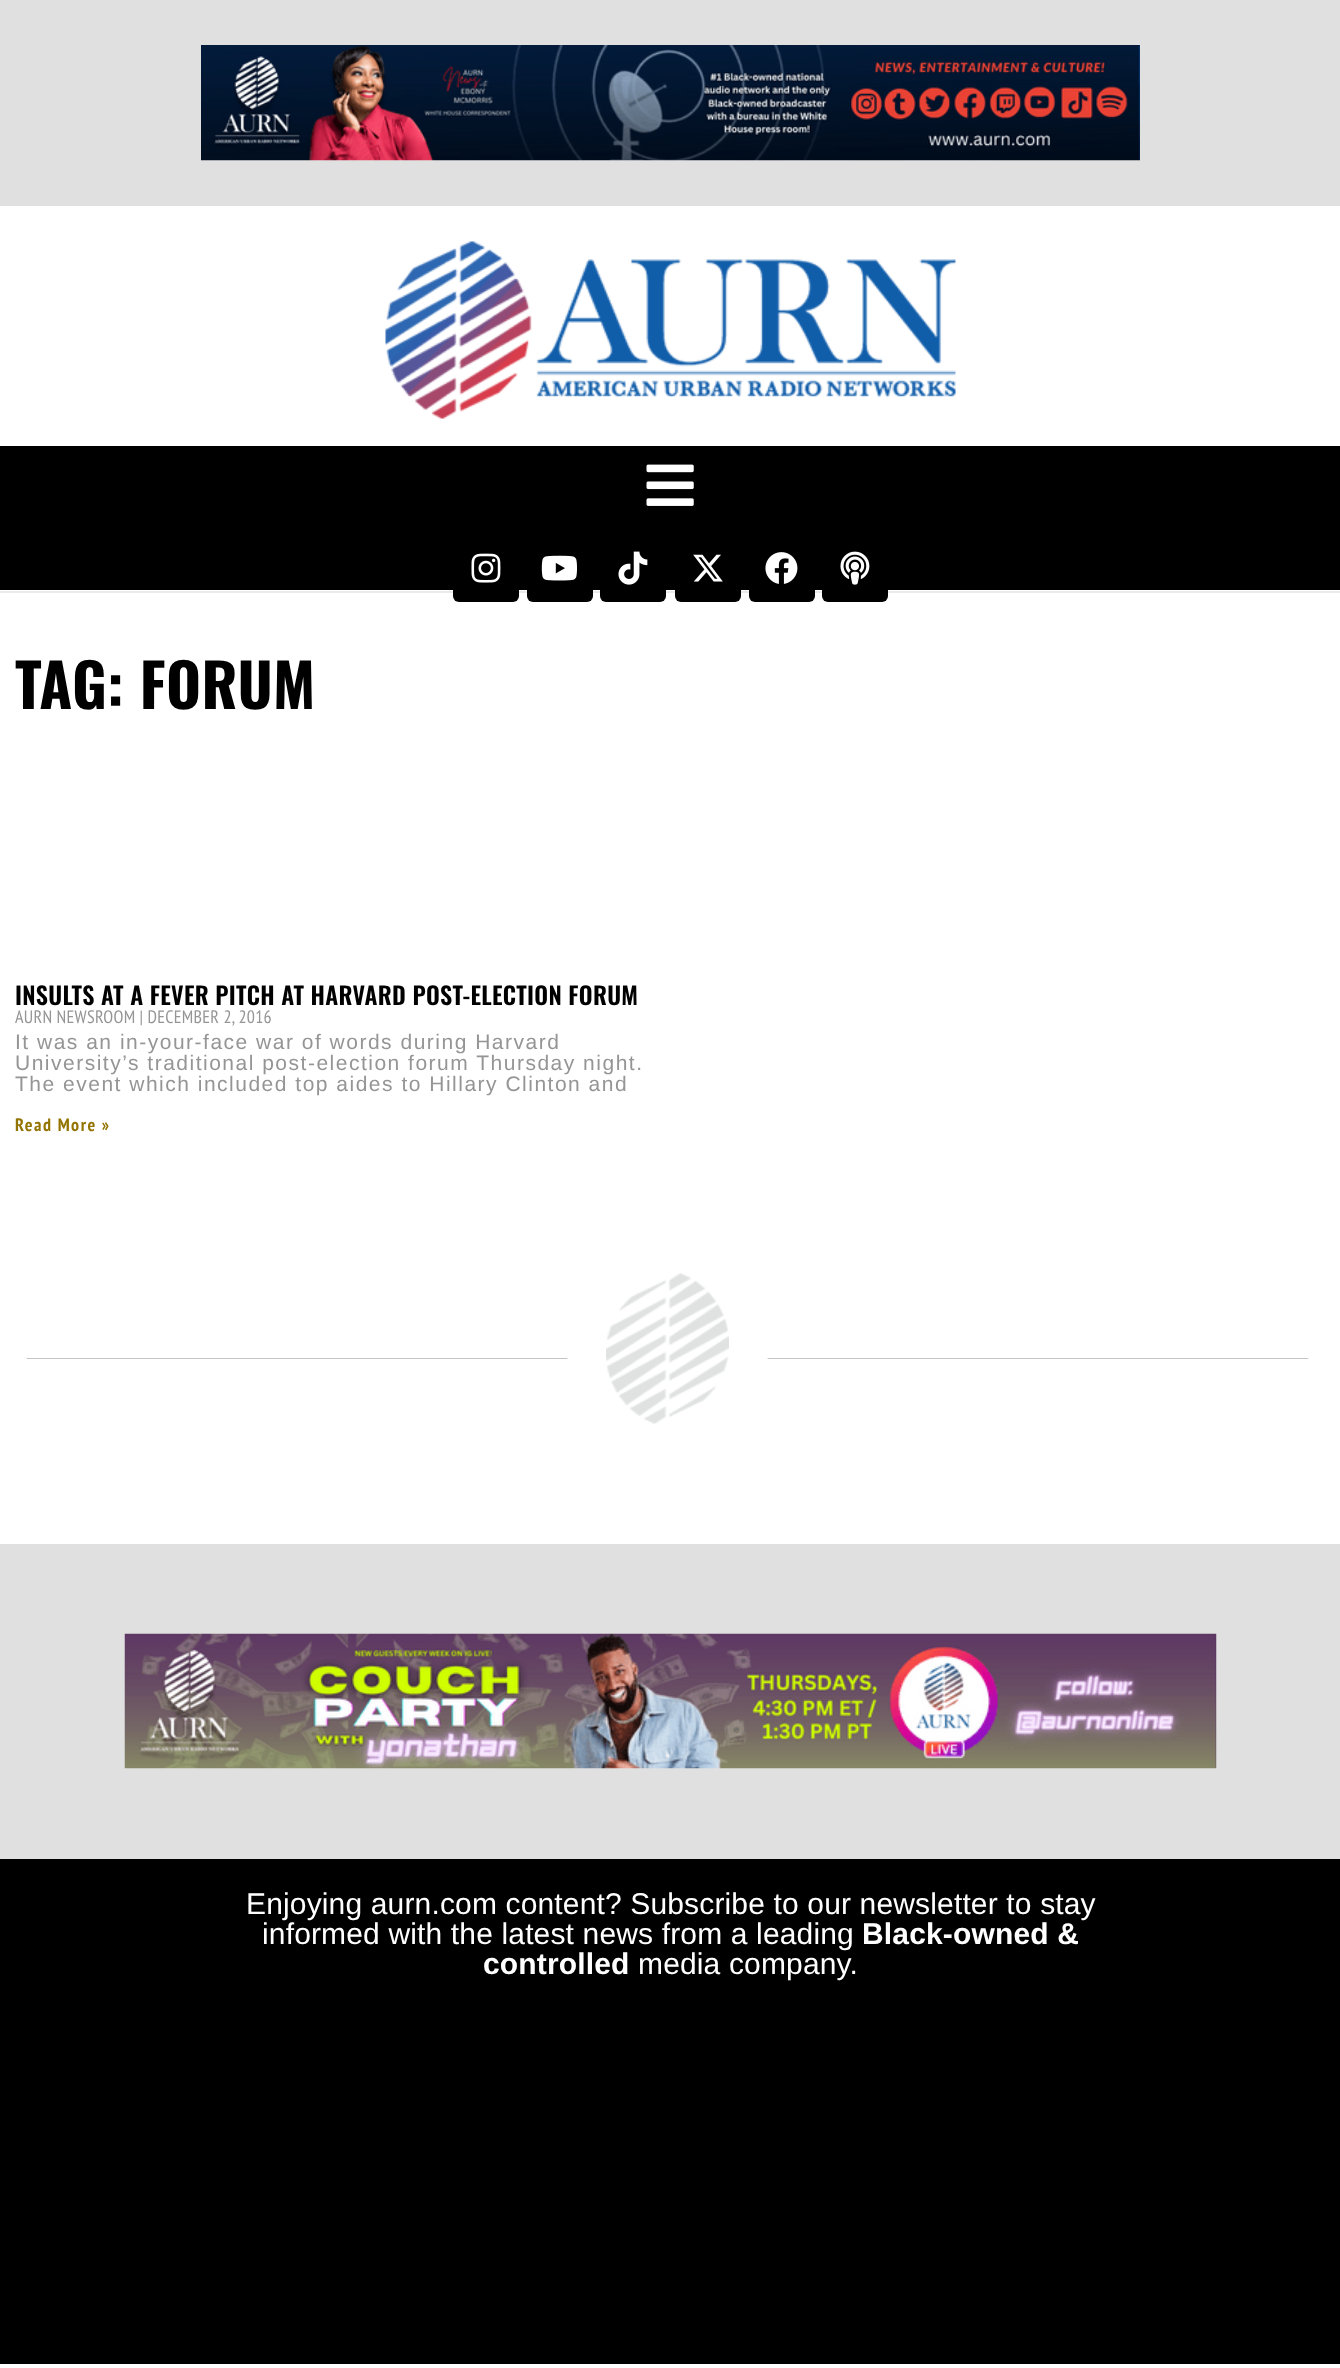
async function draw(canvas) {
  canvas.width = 1340;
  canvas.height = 2368;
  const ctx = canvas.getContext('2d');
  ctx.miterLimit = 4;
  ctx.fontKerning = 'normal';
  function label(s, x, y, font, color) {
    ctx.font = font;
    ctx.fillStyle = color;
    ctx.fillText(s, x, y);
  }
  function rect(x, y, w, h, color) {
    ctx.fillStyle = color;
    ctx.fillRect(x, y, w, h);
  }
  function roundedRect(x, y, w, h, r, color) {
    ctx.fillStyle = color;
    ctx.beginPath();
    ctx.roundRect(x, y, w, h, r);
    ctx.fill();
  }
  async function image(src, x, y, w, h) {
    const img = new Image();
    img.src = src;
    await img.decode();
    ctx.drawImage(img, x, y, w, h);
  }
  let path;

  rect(0, 0, 1340, 2368, '#fff');
  rect(0, 0, 1340, 206, '#e0e0e0');
  await image('assets/img1.png', 201, 45, 939, 116);
  await image('assets/img2.png', 385, 241, 571, 178);
  rect(0, 446, 1340, 144, '#000');
  await image('assets/img3.png', 646, 464, 48, 42);
  rect(0, 591, 1340, 2, '#eaeaea');
  roundedRect(453, 536, 66, 66, 6, '#000');
  await image('assets/img4.png', 471, 553, 30, 30);
  roundedRect(527, 536, 66, 66, 6, '#000');
  await image('assets/img5.png', 541, 555, 36, 26);
  roundedRect(600, 536, 66, 66, 6, '#000');
  await image('assets/img6.png', 618, 551, 30, 34);
  roundedRect(675, 536, 66, 66, 6, '#000');
  await image('assets/img7.png', 693, 554, 30, 28);
  roundedRect(749, 536, 66, 66, 6, '#000');
  await image('assets/img8.png', 765, 552, 33, 32);
  roundedRect(822, 536, 66, 66, 6, '#000');
  await image('assets/img9.png', 840, 551, 30, 34);
  ctx.letterSpacing = '0.3px';
  label('TAG: FORUM', 15, 709, 'bold 60px Oswald', '#000');
  label('INSULTS AT A FEVER PITCH AT HARVARD POST-ELECTION FORUM', 15, 1005, '600 24px Oswald', '#000');
  label('AURN NEWSROOM | DECEMBER 2, 2016', 15, 1023, '18px PT Sans Narrow', '#959596');
  ctx.letterSpacing = '1.5px';
  label('It was an in-your-face war of words during Harvard', 15, 1049, '21px Liberation Sans', '#959596');
  label('University’s traditional post-election forum Thursday night.', 15, 1070, '21px Liberation Sans', '#959596');
  label('The event which included top aides to Hillary Clinton and', 15, 1091, '21px Liberation Sans', '#959596');
  label('Read More »', 15, 1131, 'bold 18px PT Sans Narrow', '#947401');
  ctx.save();
  ctx.beginPath();
  ctx.rect(0, 1358, 594, 5);
  ctx.clip();
  path = new Path2D('M27 1358H567');
  ctx.strokeStyle = '#798184';
  ctx.lineWidth = 0.9;
  ctx.lineCap = 'round';
  ctx.stroke(path);
  ctx.restore();
  await image('assets/img10.png', 606, 1273, 123, 151);
  ctx.save();
  ctx.beginPath();
  ctx.rect(741, 1358, 594, 5);
  ctx.clip();
  path = new Path2D('M768 1358H1308');
  ctx.strokeStyle = '#798184';
  ctx.lineWidth = 0.9;
  ctx.lineCap = 'round';
  ctx.stroke(path);
  ctx.restore();
  rect(0, 1544, 1340, 315, '#e0e0e0');
  await image('assets/img11.png', 124, 1633, 1093, 136);
  rect(0, 1859, 1340, 505, '#000');
  ctx.letterSpacing = '0.15px';
  label('Enjoying aurn.com content? Subscribe to our newsletter to stay', 246, 1914, '30px Liberation Sans', '#fff');
  label('informed with the latest news from a leading', 262, 1944, '30px Liberation Sans', '#fff');
  label('Black-owned &', 862, 1944, 'bold 30px Liberation Sans', '#fff');
  label('controlled', 483, 1974, 'bold 30px Liberation Sans', '#fff');
  label('media company.', 638, 1974, '30px Liberation Sans', '#fff');
}

draw(document.querySelector('canvas'));
